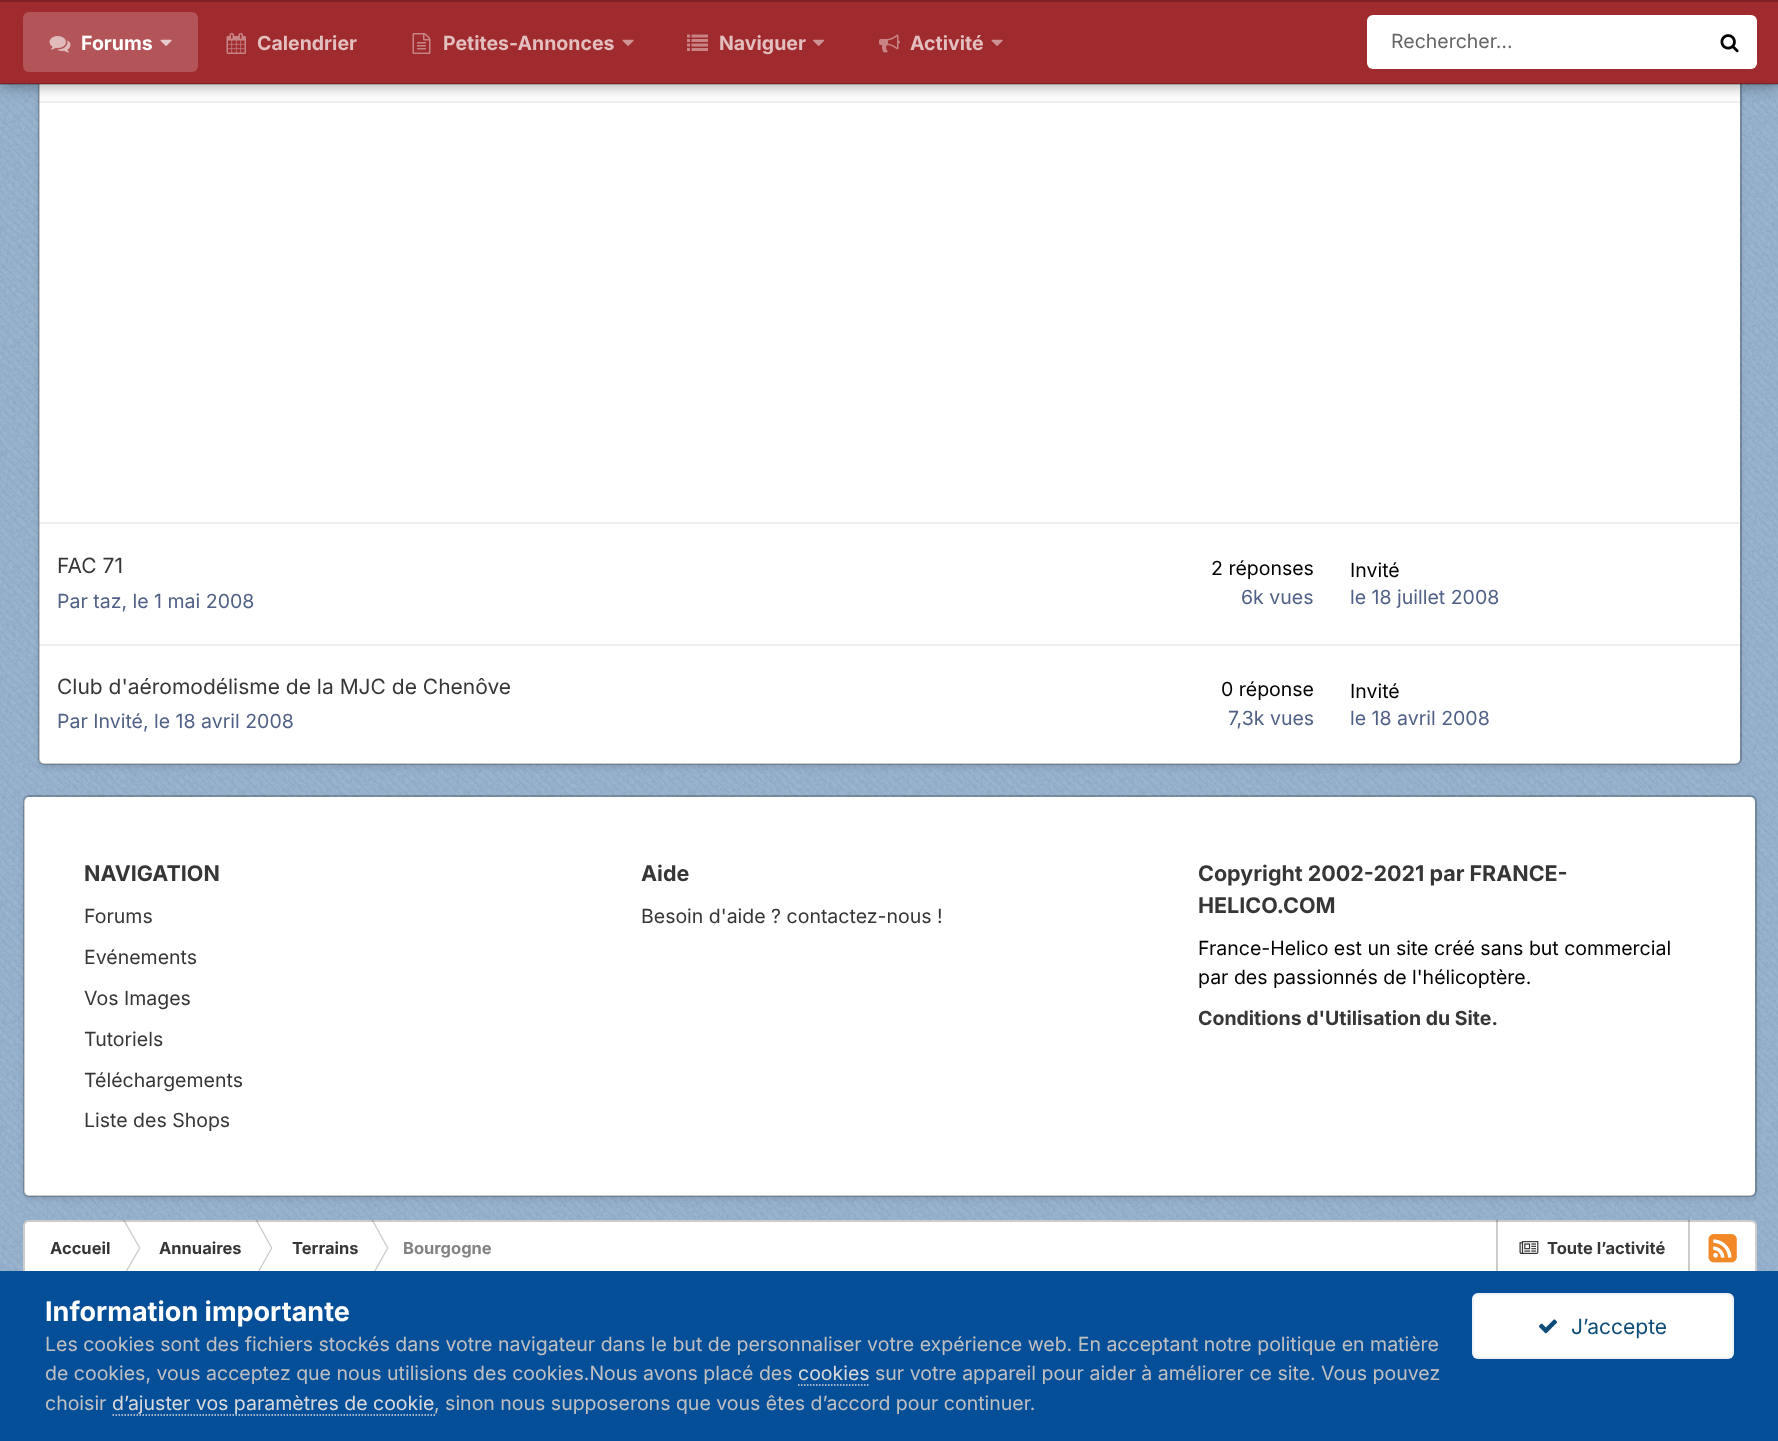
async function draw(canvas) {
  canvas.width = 1778;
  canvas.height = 1441;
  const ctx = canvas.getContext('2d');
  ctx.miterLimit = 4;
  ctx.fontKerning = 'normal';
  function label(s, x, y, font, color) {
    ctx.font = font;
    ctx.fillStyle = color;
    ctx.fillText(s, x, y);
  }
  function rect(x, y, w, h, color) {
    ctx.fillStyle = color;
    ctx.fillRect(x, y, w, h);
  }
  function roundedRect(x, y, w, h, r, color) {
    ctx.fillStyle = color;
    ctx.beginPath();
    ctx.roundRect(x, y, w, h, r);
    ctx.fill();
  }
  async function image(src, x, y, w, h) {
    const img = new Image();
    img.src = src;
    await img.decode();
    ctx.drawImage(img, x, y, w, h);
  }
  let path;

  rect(0, 0, 1778, 1441, '#fff');
  await image('assets/img1.png', 0, 84, 1778, 1187);
  ctx.fillStyle = '#0000001a';
  ctx.filter = 'blur(3px)';
  ctx.beginPath();
  ctx.roundRect(39, -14, 1701, 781, 5);
  ctx.fill();
  ctx.filter = 'none';
  roundedRect(39, -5, 1701, 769, 5, '#fff');
  ctx.beginPath();
  ctx.roundRect(39, -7, 1702, 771, 5);
  ctx.strokeStyle = '#00000033';
  ctx.lineWidth = 2;
  ctx.stroke();
  rect(39, 101, 1701, 2, '#5060861a');
  ctx.fillStyle = '#00000059';
  ctx.filter = 'blur(7.5px)';
  ctx.beginPath();
  ctx.rect(0, -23, 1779, 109);
  ctx.fill();
  ctx.filter = 'none';
  rect(0, 2, 1778, 82, '#a02b2e');
  rect(0, 0, 1778, 2, '#802225');
  rect(0, 83, 1778, 2, '#00000033');
  roundedRect(23, 12, 175, 60, 6, '#b35558');
  await image('assets/img2.png', 49, 36, 22, 17);
  label('Forums', 81, 50, 'bold 19.5px Inter', '#fff');
  await image('assets/img3.png', 160, 39, 12, 7);
  await image('assets/img4.png', 226, 33, 20, 21);
  label('Calendrier', 257, 50, 'bold 19.5px Inter', '#e3bfc0');
  await image('assets/img5.png', 412, 33, 19, 21);
  label('Petites-Annonces', 443, 50, 'bold 19.5px Inter', '#e3bfc0');
  await image('assets/img6.png', 622, 39, 12, 7);
  await image('assets/img7.png', 687, 34, 21, 17);
  label('Naviguer', 719, 50, 'bold 19.5px Inter', '#e3bfc0');
  await image('assets/img8.png', 813, 39, 12, 7);
  await image('assets/img9.png', 879, 34, 21, 19);
  label('Activité', 910, 50, 'bold 19.5px Inter', '#e3bfc0');
  await image('assets/img6.png', 991, 39, 12, 7);
  roundedRect(1367, 15, 390, 54, 6, '#fff');
  label('Rechercher…', 1391, 48, '19.5px Inter', '#666');
  await image('assets/img10.png', 1720, 34, 19, 19);
  rect(39, 522, 1701, 2, '#5060861a');
  rect(39, 644, 1701, 2, '#5060861a');
  label('FAC 71', 57, 573, '21px Inter', '#363636');
  label('Par taz, le 1 mai 2008', 57, 608, '19.5px Inter', '#506086');
  label('2 réponses', 1211, 575, '19.5px Inter', '#000');
  label('6k vues', 1241, 604, '19.5px Inter', '#506086');
  label('Invité', 1350, 577, '19.5px Inter', '#000');
  label('le 18 juillet 2008', 1350, 604, '19.5px Inter', '#506086');
  label('Club d\'aéromodélisme de la MJC de Chenôve', 57, 694, '21px Inter', '#363636');
  label('Par Invité, le 18 avril 2008', 57, 728, '19.5px Inter', '#506086');
  label('0 réponse', 1221, 696, '19.5px Inter', '#000');
  label('7,3k vues', 1228, 725, '19.5px Inter', '#506086');
  label('Invité', 1350, 698, '19.5px Inter', '#000');
  label('le 18 avril 2008', 1350, 725, '19.5px Inter', '#506086');
  ctx.fillStyle = '#0000001a';
  ctx.filter = 'blur(3px)';
  ctx.beginPath();
  ctx.roundRect(24, 800, 1731, 399, 5);
  ctx.fill();
  ctx.filter = 'none';
  roundedRect(24, 797, 1731, 399, 5, '#fff');
  ctx.beginPath();
  ctx.roundRect(24, 796, 1732, 400, 5);
  ctx.stroke();
  label('NAVIGATION', 84, 881, 'bold 21.5px Inter', '#363636');
  label('Forums', 84, 923, '19.5px Inter', '#363636');
  label('Evénements', 84, 964, '19.5px Inter', '#363636');
  label('Vos Images', 84, 1005, '19.5px Inter', '#363636');
  label('Tutoriels', 84, 1046, '19.5px Inter', '#363636');
  label('Téléchargements', 84, 1087, '19.5px Inter', '#363636');
  label('Liste des Shops', 84, 1127, '19.5px Inter', '#363636');
  label('Aide', 641, 881, 'bold 21.5px Inter', '#363636');
  label('Besoin d\'aide ? contactez-nous !', 641, 923, '19.5px Inter', '#363636');
  label('Copyright 2002-2021 par FRANCE-', 1198, 881, 'bold 21.5px Inter', '#363636');
  label('HELICO.COM', 1198, 913, 'bold 21.5px Inter', '#363636');
  label('France-Helico est un site créé sans but commercial', 1198, 955, '19.5px Inter', '#000');
  label('par des passionnés de l\'hélicoptère.', 1198, 984, '19.5px Inter', '#000');
  label('Conditions d\'Utilisation du Site.', 1198, 1025, 'bold 19.5px Inter', '#363636');
  roundedRect(23, 1220, 1734, 57, 6, '#fff');
  ctx.fillStyle = '#ccc';
  path = new Path2D('M124.5 1220H123L139 1248H140.5ZM122.5 1276.5H124L140.5 1248H139Z');
  ctx.fill(path);
  path = new Path2D('M257 1220H255.5L271 1248H272.5ZM255 1276.5H256.5L272.5 1248H271Z');
  ctx.fill(path);
  path = new Path2D('M373 1220H371.5L387 1248H388.5ZM371 1276.5H372.5L388.5 1248H387Z');
  ctx.fill(path);
  rect(1496, 1220, 2, 57, '#ccc');
  await image('assets/img11.png', 1519, 1241, 20, 13);
  rect(1688, 1220, 2, 57, '#ccc');
  await image('assets/img12.png', 1708, 1234, 29, 29);
  ctx.beginPath();
  ctx.roundRect(24, 1221, 1732, 55, 5);
  ctx.stroke();
  label('Accueil', 50, 1254, 'bold 16.5px Inter', '#363636');
  label('Annuaires', 159, 1254, 'bold 16.5px Inter', '#363636');
  label('Terrains', 292, 1254, 'bold 16.5px Inter', '#363636');
  label('Bourgogne', 403, 1254, 'bold 16.5px Inter', '#838383');
  label('Toute l’activité', 1547, 1254, 'bold 16.5px Inter', '#363636');
  rect(0, 1271, 1778, 170, '#054f98');
  label('Information importante', 45, 1321, 'bold 27px Inter', '#fff');
  label('Les cookies sont des fichiers stockés dans votre navigateur dans le but de personnaliser votre expérience web. En acceptant notre politique en matière', 45, 1351, '19.5px Inter', '#c0c0c0');
  label('de cookies, vous acceptez que nous utilisions des cookies.Nous avons placé des', 45, 1380, '19.5px Inter', '#c0c0c0');
  label('cookies', 798, 1380, '19.5px Inter', '#dadada');
  path = new Path2D('M798 1385H870');
  ctx.strokeStyle = '#dadada';
  ctx.lineWidth = 1.5;
  ctx.setLineDash([1.5, 1.5]);
  ctx.stroke(path);
  label('sur votre appareil pour aider à améliorer ce site. Vous pouvez', 875, 1380, '19.5px Inter', '#c0c0c0');
  label('choisir', 45, 1410, '19.5px Inter', '#c0c0c0');
  label('d’ajuster vos paramètres de cookie', 112, 1410, '19.5px Inter', '#dadada');
  path = new Path2D('M112.5 1415H435');
  ctx.stroke(path);
  label(', sinon nous supposerons que vous êtes d’accord pour continuer.', 434, 1410, '19.5px Inter', '#c0c0c0');
  roundedRect(1472, 1293, 262, 66, 6, '#fff');
  ctx.beginPath();
  ctx.roundRect(1473, 1294, 260, 64, 5);
  ctx.strokeStyle = '#0e4c7912';
  ctx.lineWidth = 2;
  ctx.setLineDash([]);
  ctx.stroke();
  await image('assets/img13.png', 1538, 1319, 20, 15);
  label('J’accepte', 1571, 1334, '21px Inter', '#0e4c79');
}

draw(document.querySelector('canvas'));
